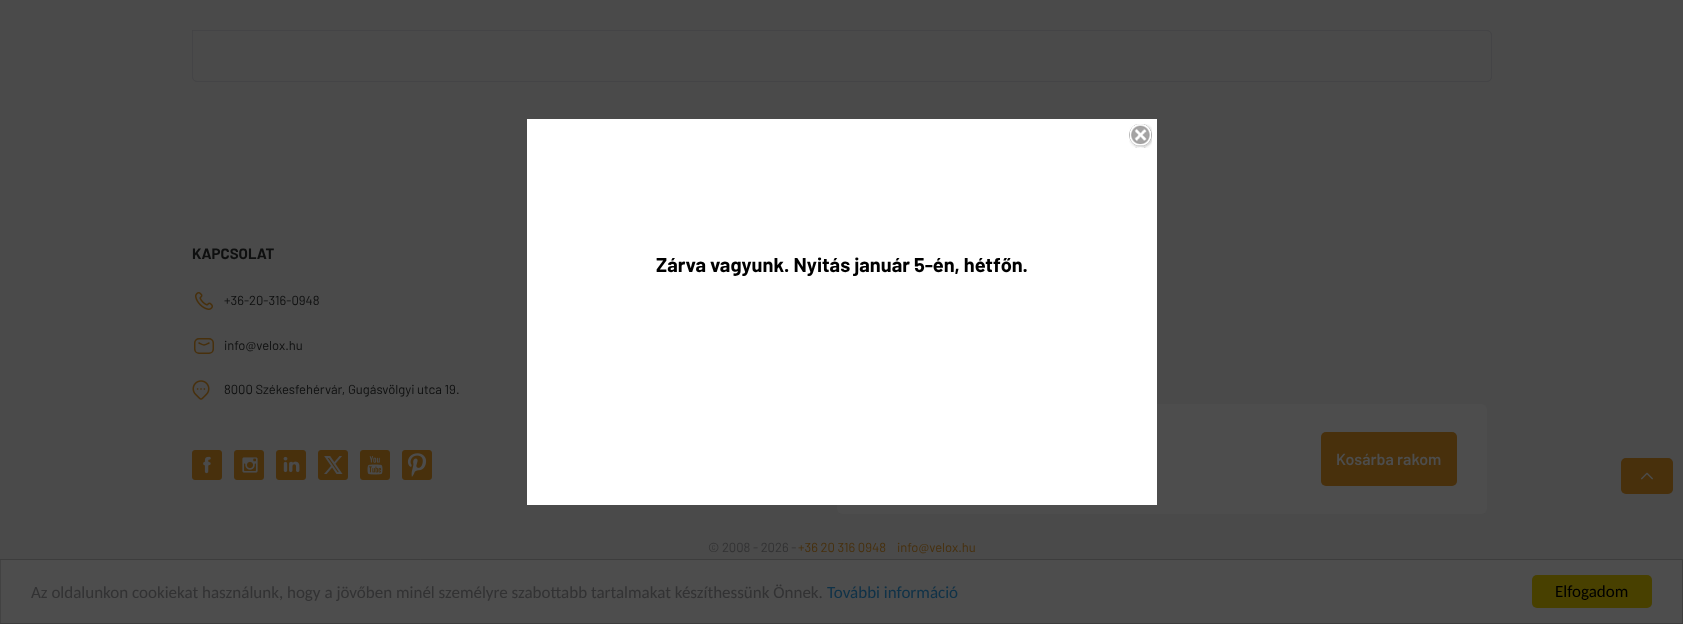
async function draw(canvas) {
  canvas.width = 1683;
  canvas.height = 624;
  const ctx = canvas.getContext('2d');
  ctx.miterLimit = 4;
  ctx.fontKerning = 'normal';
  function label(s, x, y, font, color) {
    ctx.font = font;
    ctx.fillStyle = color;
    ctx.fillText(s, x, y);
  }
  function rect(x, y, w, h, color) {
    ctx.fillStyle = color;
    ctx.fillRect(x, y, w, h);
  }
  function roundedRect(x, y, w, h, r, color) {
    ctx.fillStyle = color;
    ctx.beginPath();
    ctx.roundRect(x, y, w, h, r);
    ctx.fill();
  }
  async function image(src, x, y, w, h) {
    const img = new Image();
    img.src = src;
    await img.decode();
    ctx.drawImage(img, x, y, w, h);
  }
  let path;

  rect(0, 0, 1683, 624, '#4a4a4a');
  label('KAPCSOLAT', 192, 259, 'bold 15px Barlow', '#0e0f0f');
  await image('assets/img1.png', 195, 292, 18, 18);
  label('+36-20-316-0948', 224, 305, '13px Barlow', '#0e0f0f');
  ctx.beginPath();
  ctx.roundRect(194.75, 338.75, 18.5, 14.5, 4.25);
  ctx.strokeStyle = '#48300c';
  ctx.lineWidth = 1.5;
  ctx.stroke();
  path = new Path2D('M199 343C204.5 345.5 203.5 345.5 209 343');
  ctx.lineCap = 'round';
  ctx.lineJoin = 'round';
  ctx.stroke(path);
  label('info@velox.hu', 224, 350, '13px Barlow', '#0e0f0f');
  await image('assets/img2.png', 192, 380, 18, 20);
  label('8000 Székesfehérvár, Gugásvölgyi utca 19.', 224, 394, '13px Barlow', '#0e0f0f');
  await image('assets/img3.png', 192, 450, 30, 30);
  await image('assets/img4.png', 234, 450, 30, 30);
  await image('assets/img5.png', 276, 450, 30, 30);
  await image('assets/img6.png', 318, 450, 30, 30);
  await image('assets/img7.png', 360, 450, 30, 30);
  await image('assets/img8.png', 402, 450, 30, 30);
  label('© 2008 - 2026 -', 708, 552, '13px Barlow', '#323233');
  label('+36 20 316 0948', 798, 552, '13px Barlow', '#48300c');
  label('info@velox.hu', 897, 552, '13px Barlow', '#48300c');
  ctx.beginPath();
  ctx.roundRect(192.5, 30.5, 1299, 51, [0, 4.5, 4.5, 4.5]);
  ctx.strokeStyle = '#444446';
  ctx.lineWidth = 1;
  ctx.lineJoin = 'miter';
  ctx.stroke();
  roundedRect(837, 404, 650, 110, 5, '#4d4d4d');
  roundedRect(1321, 432, 136, 54, 5, '#48300c');
  label('Kosárba rakom', 1336, 465, '600 16px Barlow', '#4d4d4d');
  roundedRect(1621, 458, 52, 36, 5, '#48300c');
  await image('assets/img9.png', 1641, 472, 12, 8);
  rect(527, 119, 630, 386, '#fff');
  await image('assets/img10.png', 1129, 124, 23, 24);
  label('Zárva vagyunk. Nyitás január 5-én, hétfőn.', 656, 272, 'bold 20px Barlow', '#000');
  ctx.fillStyle = '#4d4d4d';
  ctx.beginPath();
  ctx.rect(0.5, 559.5, 1682, 64);
  ctx.fill();
  ctx.strokeStyle = '#3d3d3d';
  ctx.stroke();
  label('Az oldalunkon cookiekat használunk, hogy a jövőben minél személyre szabottabb tartalmakat készíthessünk Önnek.', 31, 598, '17px Carlito', '#323233');
  label('További információ', 827, 598, '17px Carlito', '#0f3248');
  roundedRect(1532, 575, 120, 33, 5, '#484000');
  label('Elfogadom', 1555, 597, '17px Carlito', '#000');
}

draw(document.querySelector('canvas'));
